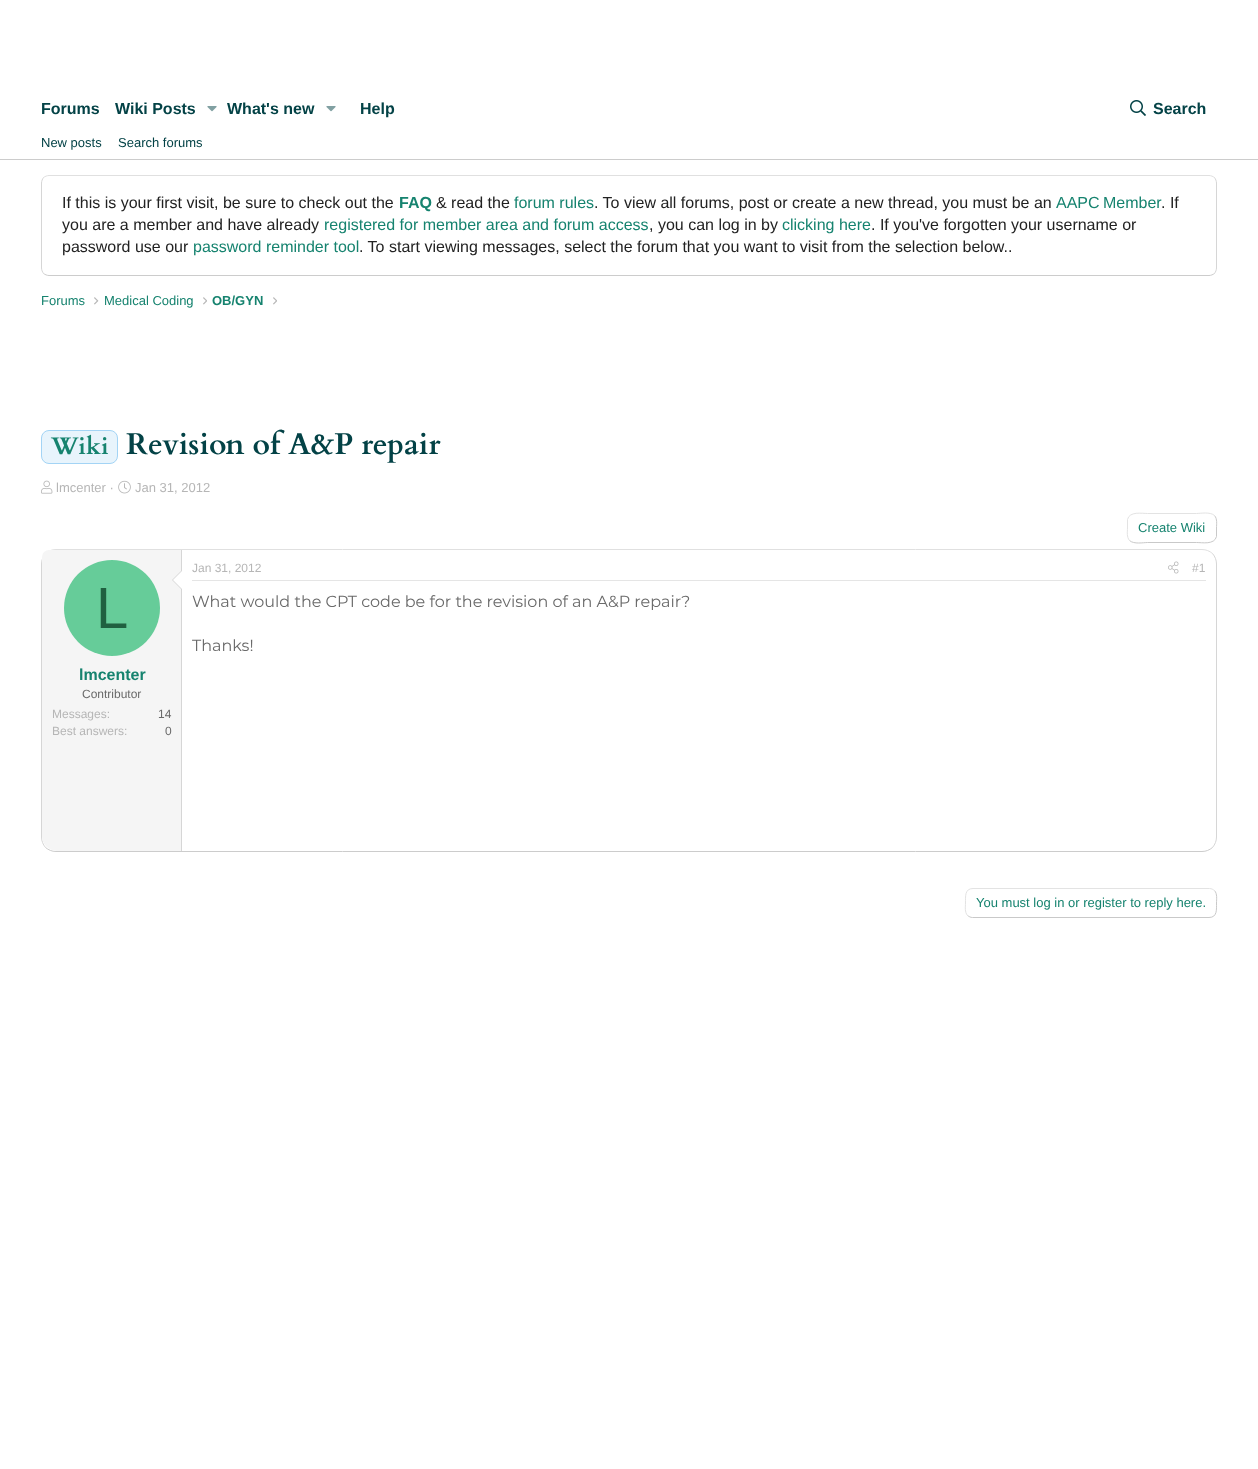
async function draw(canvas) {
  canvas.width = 1258;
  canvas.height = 1469;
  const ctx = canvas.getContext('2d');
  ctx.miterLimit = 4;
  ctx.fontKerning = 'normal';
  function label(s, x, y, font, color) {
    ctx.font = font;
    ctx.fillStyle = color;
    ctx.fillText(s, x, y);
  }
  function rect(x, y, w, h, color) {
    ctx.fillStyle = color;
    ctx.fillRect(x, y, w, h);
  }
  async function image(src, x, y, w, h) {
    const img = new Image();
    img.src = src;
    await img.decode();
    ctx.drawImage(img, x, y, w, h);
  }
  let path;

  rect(0, 0, 1258, 1469, '#fff');
  label('Forums', 41, 114, 'bold 16px Liberation Sans', '#034246');
  label('Wiki Posts', 115, 114, 'bold 16px Liberation Sans', '#034246');
  await image('assets/img1.png', 207, 106, 10, 6);
  label('What\'s new', 227, 114, 'bold 16px Liberation Sans', '#034246');
  await image('assets/img1.png', 326, 106, 10, 6);
  label('Help', 360, 114, 'bold 16px Liberation Sans', '#034246');
  await image('assets/img2.png', 1130, 100, 16, 16);
  label('Search', 1153, 114, 'bold 16px Liberation Sans', '#034246');
  rect(0, 159, 1258, 1, '#ccc');
  label('New posts', 41, 147, '13px Liberation Sans', '#034246');
  label('Search forums', 118, 147, '13px Liberation Sans', '#034246');
  path = new Path2D('M43.5 177.5C45 176.5 47 175.5 49 175.5H1209C1211 175.5 1213 176.5 1214.5 177.5');
  ctx.strokeStyle = '#e0e0e0';
  ctx.stroke(path);
  path = new Path2D('M1214.5 177.5C1215.5 179 1216.5 181 1216.5 183V268C1216.5 270 1215.5 272 1214.5 273.5');
  ctx.strokeStyle = '#d6d6d6';
  ctx.stroke(path);
  path = new Path2D('M1214.5 273.5C1213 274.5 1211 275.5 1209 275.5H49C47 275.5 45 274.5 43.5 273.5');
  ctx.strokeStyle = '#ccc';
  ctx.stroke(path);
  path = new Path2D('M43.5 273.5C42.5 272 41.5 270 41.5 268V183C41.5 181 42.5 179 43.5 177.5');
  ctx.strokeStyle = '#d6d6d6';
  ctx.stroke(path);
  label('If this is your first visit, be sure to check out the', 62, 208, '16px Liberation Sans', '#222');
  label('FAQ', 399, 208, 'bold 16px Liberation Sans', '#16836f');
  label('& read the', 436, 208, '16px Liberation Sans', '#222');
  label('forum rules', 514, 208, '16px Liberation Sans', '#16836f');
  label('. To view all forums, post or create a new thread, you must be an', 594, 208, '16px Liberation Sans', '#222');
  ctx.wordSpacing = '-1px';
  label('AAPC Member', 1056, 208, '16px Liberation Sans', '#16836f');
  ctx.wordSpacing = '0px';
  label('. If', 1161, 208, '16px Liberation Sans', '#222');
  label('you are a member and have already', 62, 230, '16px Liberation Sans', '#222');
  label('registered for member area and forum access', 324, 230, '16px Liberation Sans', '#16836f');
  label(', you can log in by', 649, 230, '16px Liberation Sans', '#222');
  label('clicking here', 782, 230, '16px Liberation Sans', '#16836f');
  label('. If you\'ve forgotten your username or', 871, 230, '16px Liberation Sans', '#222');
  label('password use our', 62, 252, '16px Liberation Sans', '#222');
  label('password reminder tool', 193, 252, '16px Liberation Sans', '#16836f');
  label('. To start viewing messages, select the forum that you want to visit from the selection below..', 359, 252, '16px Liberation Sans', '#222');
  label('Forums', 41, 305, '13px Liberation Sans', '#16836f');
  await image('assets/img3.png', 94, 297, 5, 8);
  label('Medical Coding', 104, 305, '13px Liberation Sans', '#16836f');
  await image('assets/img4.png', 203, 297, 4, 8);
  label('OB/GYN', 212, 305, 'bold 13px Liberation Sans', '#16836f');
  await image('assets/img4.png', 273, 297, 4, 8);
  ctx.fillStyle = '#e8f4fc';
  ctx.beginPath();
  ctx.roundRect(41.5, 430.5, 76, 33, 7.5);
  ctx.fill();
  ctx.strokeStyle = '#a3d4f5';
  ctx.stroke();
  label('Wiki', 51, 454, 'bold 24px Cardo', '#16836f');
  label('Revision of A&P repair', 126, 454, 'bold 30px Cardo', '#034246');
  await image('assets/img5.png', 41, 480, 12, 14);
  label('lmcenter ·', 56, 492, '13px Liberation Sans', '#b6b6b6');
  await image('assets/img6.png', 118, 480, 13, 14);
  label('Jan 31, 2012', 135, 492, '13px Liberation Sans', '#b6b6b6');
  path = new Path2D('M1214.5 515.5C1217.5 519 1216.5 524 1216.5 528V536.5C1214.5 545 1202 542.5 1196.5 542.5H1147.5C1143.5 542.5 1134 544.5 1129.5 540.5');
  ctx.strokeStyle = '#c9c9c9';
  ctx.stroke(path);
  path = new Path2D('M1129.5 540.5C1126.5 537 1127.5 532 1127.5 528V519.5C1129.5 511 1142 513.5 1147.5 513.5H1196.5C1200.5 513.5 1210 511.5 1214.5 515.5');
  ctx.strokeStyle = '#e3e3e3';
  ctx.stroke(path);
  label('Create Wiki', 1138, 532, '13px Liberation Sans', '#16836f');
  path = new Path2D('M45.5 553.5C48.5 551 52 549.5 56 549.5H1202C1206 549.5 1209.5 551 1212.5 553.5');
  ctx.strokeStyle = '#e0e0e0';
  ctx.stroke(path);
  path = new Path2D('M1212.5 553.5C1215 556.5 1216.5 560 1216.5 564V837C1216.5 841 1215 844.5 1212.5 847.5');
  ctx.strokeStyle = '#d6d6d6';
  ctx.stroke(path);
  path = new Path2D('M1212.5 847.5C1209.5 850 1206 851.5 1202 851.5H56C52 851.5 48.5 850 45.5 847.5');
  ctx.strokeStyle = '#ccc';
  ctx.stroke(path);
  path = new Path2D('M45.5 847.5C43 844.5 41.5 841 41.5 837V564C41.5 560 43 556.5 45.5 553.5');
  ctx.strokeStyle = '#d6d6d6';
  ctx.stroke(path);
  ctx.fillStyle = '#f5f5f5';
  ctx.beginPath();
  ctx.roundRect(42, 550, 140, 301, [7, 0, 0, 15]);
  ctx.fill();
  rect(181, 550, 1, 301, '#d6d6d6');
  path = new Path2D('M182 570V590L172 580Z');
  ctx.fill(path);
  ctx.fillStyle = '#fff';
  path = new Path2D('M182 571V589L173 580Z');
  ctx.fill(path);
  ctx.fillStyle = '#6c9';
  ctx.beginPath();
  ctx.arc(112, 608, 48, 0, 2 * Math.PI);
  ctx.fill();
  label('L', 96, 628, '58px Liberation Sans', '#206040');
  label('lmcenter', 79, 680, 'bold 16px Liberation Sans', '#16836f');
  label('Contributor', 82, 698, '12px Liberation Sans', '#6a6a6a');
  label('Messages:', 52, 718, '12px Liberation Sans', '#b6b6b6');
  label('14', 158, 718, '12px Liberation Sans', '#6a6a6a');
  label('Best answers:', 52, 735, '12px Liberation Sans', '#b6b6b6');
  label('0', 165, 735, '12px Liberation Sans', '#6a6a6a');
  rect(192, 580, 1014, 1, '#e5e5e5');
  label('Jan 31, 2012', 192, 572, '12px Liberation Sans', '#b6b6b6');
  await image('assets/img7.png', 1168, 561, 11, 13);
  label('#1', 1192, 572, '12px Liberation Sans', '#b6b6b6');
  label('What would the CPT code be for the revision of an A&P repair?', 192, 607, '16px Montserrat', '#6a6a6a');
  label('Thanks!', 192, 651, '16px Montserrat', '#6a6a6a');
  path = new Path2D('M1214.5 890.5C1217.5 894 1216.5 899 1216.5 903C1216.5 909 1217.5 917.5 1209 917.5H972.5C970.5 917.5 969 916.5 967.5 915.5');
  ctx.strokeStyle = '#c9c9c9';
  ctx.stroke(path);
  path = new Path2D('M967.5 915.5C964.5 912 965.5 907 965.5 903C965.5 897 964.5 888.5 973 888.5H1209.5C1211.5 888.5 1213 889.5 1214.5 890.5');
  ctx.strokeStyle = '#e3e3e3';
  ctx.stroke(path);
  label('You must log in or register to reply here.', 976, 907, '13px Liberation Sans', '#16836f');
}

draw(document.querySelector('canvas'));
